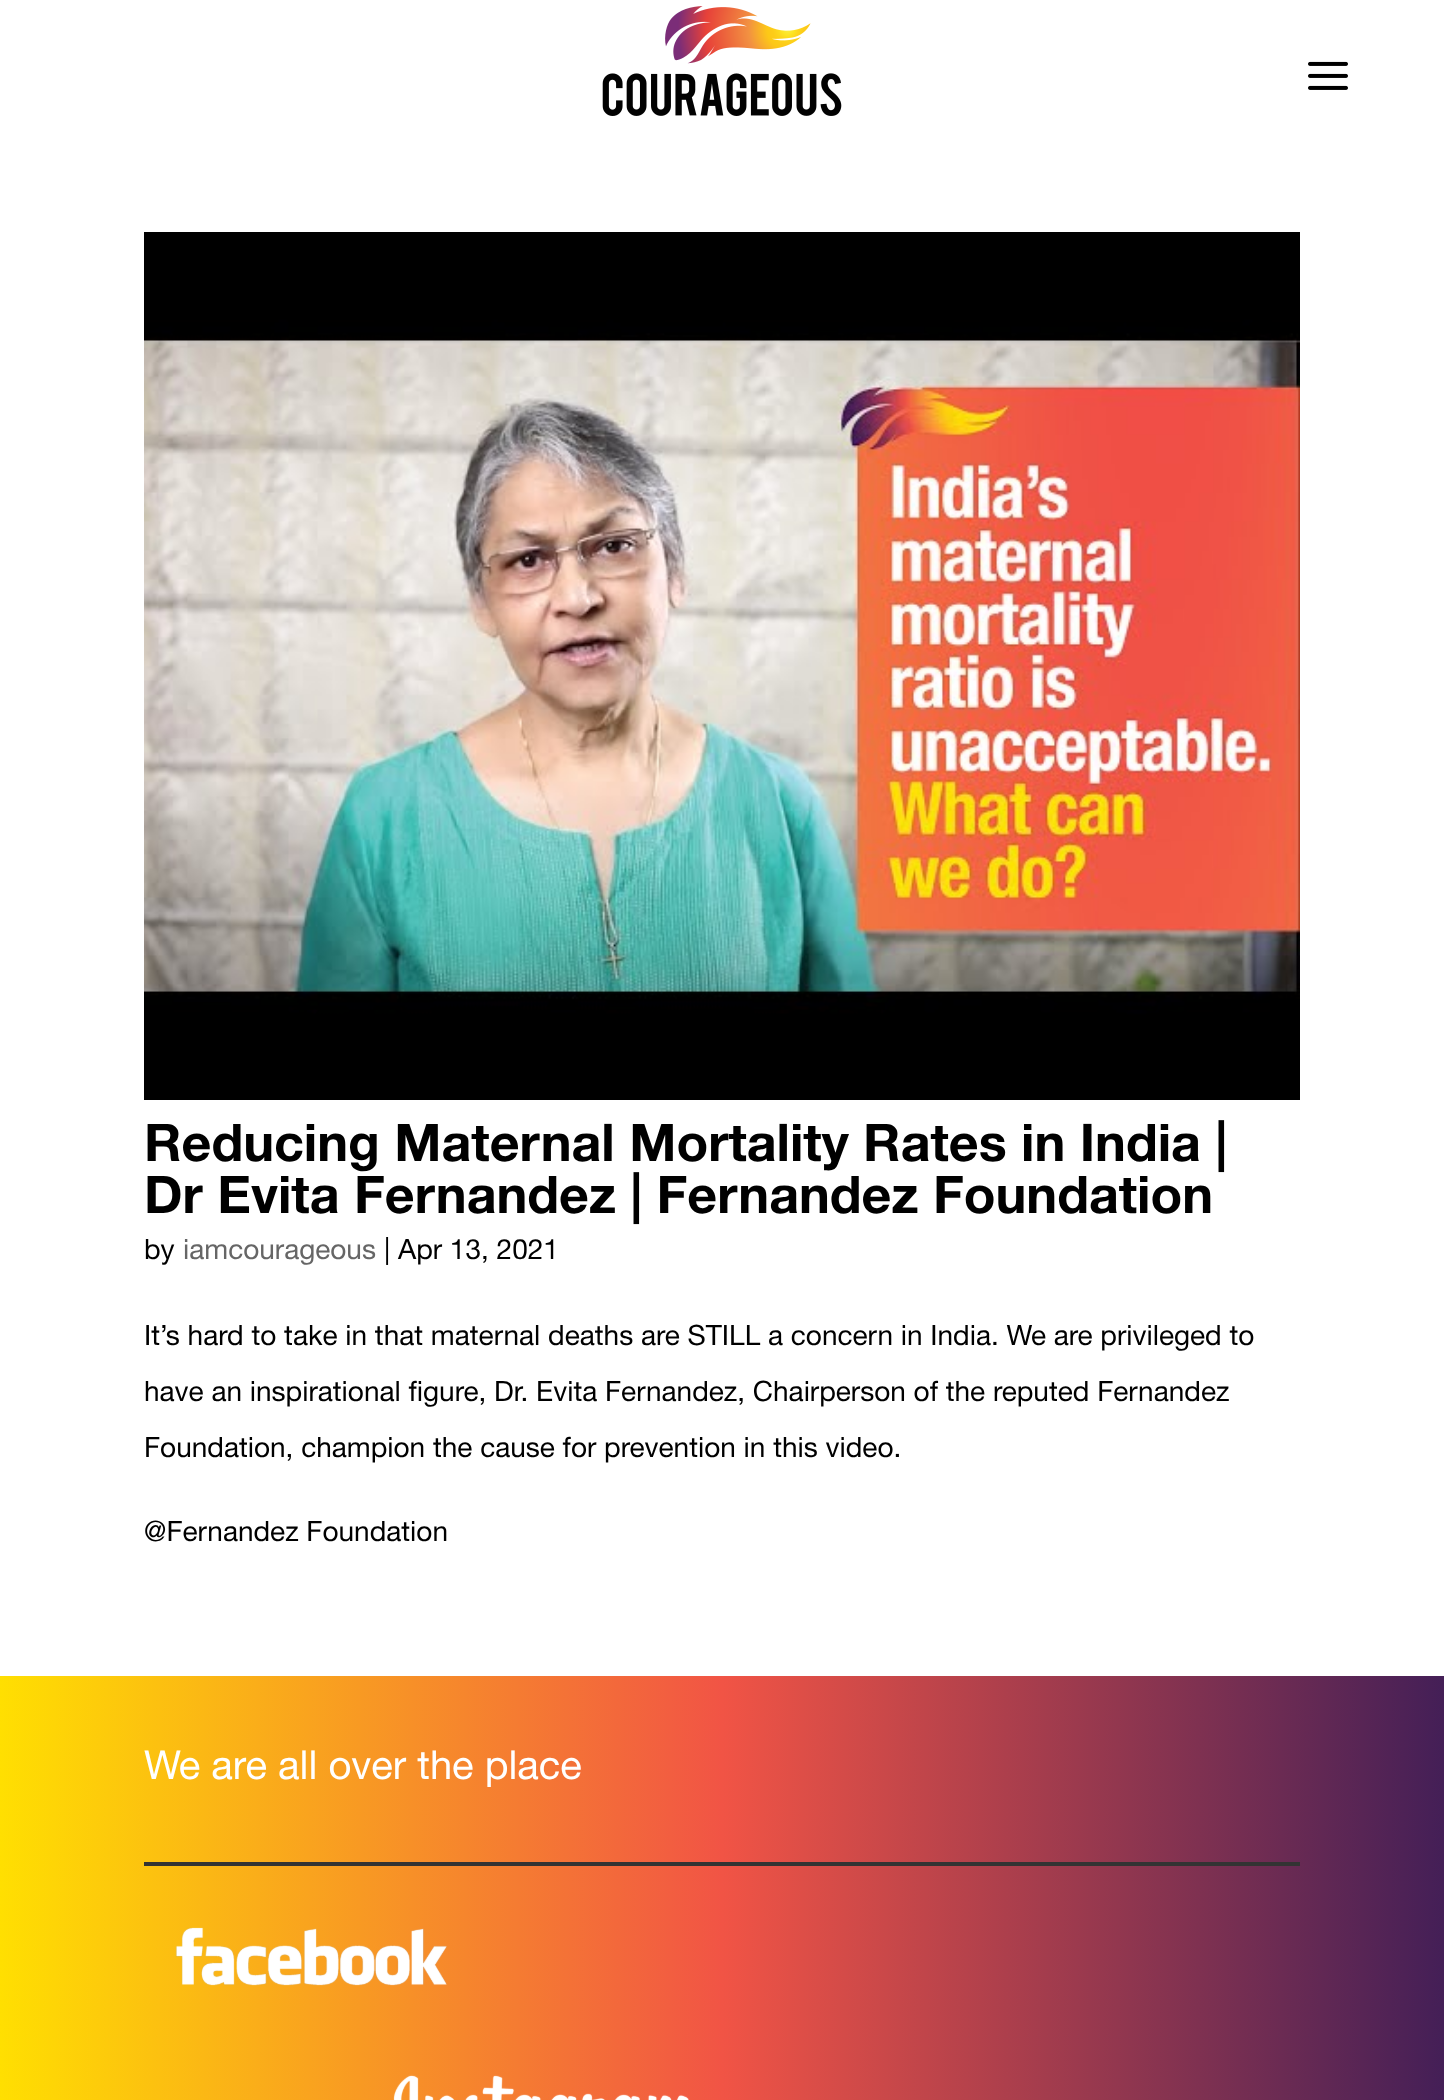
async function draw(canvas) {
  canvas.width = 1444;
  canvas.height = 2100;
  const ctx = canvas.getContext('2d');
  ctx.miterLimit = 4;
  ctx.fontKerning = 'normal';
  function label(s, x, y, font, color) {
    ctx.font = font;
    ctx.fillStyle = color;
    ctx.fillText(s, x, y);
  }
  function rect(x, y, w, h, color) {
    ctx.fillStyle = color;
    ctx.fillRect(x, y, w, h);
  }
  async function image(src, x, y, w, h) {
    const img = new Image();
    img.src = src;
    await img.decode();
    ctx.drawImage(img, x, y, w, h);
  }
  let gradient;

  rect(0, 0, 1444, 2100, '#fff');
  await image('assets/img1.png', 602, 6, 240, 110);
  await image('assets/img2.png', 1308, 61, 40, 29);
  await image('assets/img3.png', 144, 232, 1156, 868);
  label('Reducing Maternal Mortality Rates in India |', 144, 1161, 'bold 52px Helvetica Neue', '#000');
  label('Dr Evita Fernandez | Fernandez Foundation', 144, 1213, 'bold 52px Helvetica Neue', '#000');
  label('by', 144, 1259, '28px Helvetica Neue', '#000');
  label('iamcourageous', 183, 1259, '28px Helvetica Neue', '#666');
  label('| Apr 13, 2021', 384, 1259, '28px Helvetica Neue', '#000');
  label('It’s hard to take in that maternal deaths are STILL a concern in India. We are privileged to', 144, 1345, '28px Helvetica Neue', '#000');
  label('have an inspirational figure, Dr. Evita Fernandez, Chairperson of the reputed Fernandez', 144, 1401, '28px Helvetica Neue', '#000');
  label('Foundation, champion the cause for prevention in this video.', 144, 1457, '28px Helvetica Neue', '#000');
  label('@Fernandez Foundation', 144, 1541, '28px Helvetica Neue', '#000');
  gradient = ctx.createLinearGradient(0, 2100, 1444, 2100);
  gradient.addColorStop(0, '#ffdf01');
  gradient.addColorStop(0.5, '#f15445');
  gradient.addColorStop(1, '#441f57');
  ctx.fillStyle = gradient;
  ctx.fillRect(0, 1676, 1444, 424);
  label('We are all over the place', 144, 1779, '40px Helvetica Neue', '#fff');
  rect(144, 1862, 1156, 4, '#333');
  await image('assets/img4.png', 175, 1927, 272, 59);
  await image('assets/img5.png', 393, 2074, 296, 26);
}

draw(document.querySelector('canvas'));
